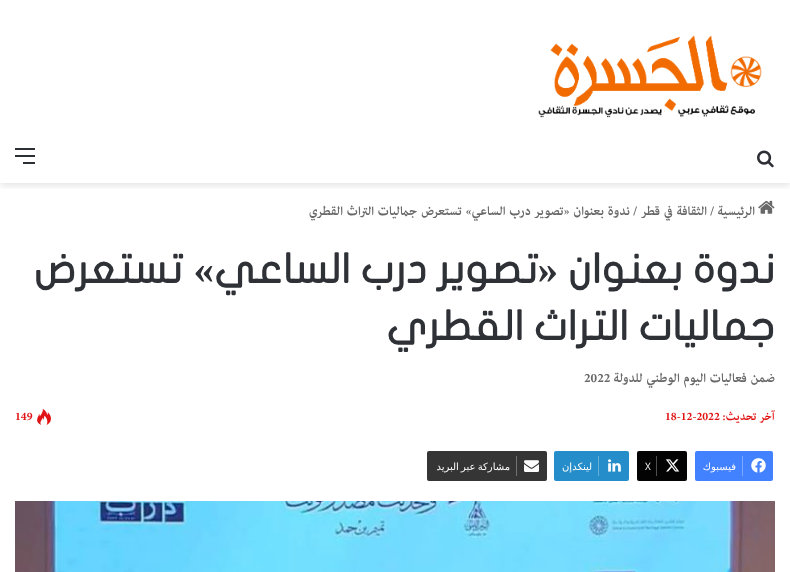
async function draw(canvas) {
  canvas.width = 790;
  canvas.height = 572;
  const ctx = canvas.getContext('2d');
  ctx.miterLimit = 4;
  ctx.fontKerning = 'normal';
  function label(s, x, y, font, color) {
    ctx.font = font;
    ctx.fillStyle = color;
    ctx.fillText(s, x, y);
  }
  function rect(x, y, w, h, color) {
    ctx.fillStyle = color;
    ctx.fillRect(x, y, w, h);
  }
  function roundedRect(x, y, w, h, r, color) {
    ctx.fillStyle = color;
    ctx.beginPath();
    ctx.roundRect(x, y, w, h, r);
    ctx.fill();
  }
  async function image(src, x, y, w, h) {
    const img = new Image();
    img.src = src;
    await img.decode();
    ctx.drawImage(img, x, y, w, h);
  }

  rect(0, 0, 790, 572, '#fff');
  ctx.save();
  ctx.beginPath();
  ctx.rect(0, 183, 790, 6);
  ctx.clip();
  ctx.fillStyle = '#0000001a';
  ctx.filter = 'blur(3.5px)';
  ctx.beginPath();
  ctx.rect(0, 3, 790, 183);
  ctx.fill();
  ctx.filter = 'none';
  ctx.restore();
  await image('assets/img1.png', 538, 35, 224, 83);
  await image('assets/img2.png', 757, 150, 17, 18);
  rect(15, 155, 20, 2, '#2c2f34');
  rect(15, 148, 20, 2, '#2c2f34');
  rect(23, 162, 12, 2, '#2c2f34');
  await image('assets/img3.png', 758, 200, 17, 14);
  ctx.direction = 'rtl';
  label('الرئيسية', 755, 215, 'bold 18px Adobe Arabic', '#686868');
  ctx.direction = 'ltr';
  label('/', 710, 215, 'bold 18px Adobe Arabic', '#686868');
  ctx.direction = 'rtl';
  label('الثقافة في قطر', 707, 215, 'bold 18px Adobe Arabic', '#686868');
  ctx.direction = 'ltr';
  label('/', 633, 215, 'bold 18px Adobe Arabic', '#686868');
  ctx.direction = 'rtl';
  label('ندوة بعنوان «تصوير درب الساعي» تستعرض جماليات التراث القطري', 630, 215, 'bold 18px Adobe Arabic', '#686868');
  label('ندوة بعنوان', 775, 283, 'bold 41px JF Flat', '#2e3136');
  label('«', 558, 283, 'bold 41px Liberation Serif', '#2e3136');
  label('تصوير درب الساعي', 538, 283, 'bold 41px JF Flat', '#2e3136');
  label('»', 214, 283, 'bold 41px Liberation Serif', '#2e3136');
  label('تستعرض', 183, 283, 'bold 41px JF Flat', '#2e3136');
  label('جماليات التراث القطري', 775, 340, 'bold 41px JF Flat', '#2e3136');
  label('ضمن فعاليات اليوم الوطني للدولة', 775, 382, 'bold 18px Adobe Arabic', '#686868');
  ctx.direction = 'ltr';
  label('2022', 584, 382, 'bold 18px Adobe Arabic', '#686868');
  ctx.direction = 'rtl';
  label('آخر تحديث:', 775, 420, 'bold 16px Adobe Arabic', '#e01313');
  ctx.direction = 'ltr';
  label('18-12-2022', 665, 420, 'bold 16px Adobe Arabic', '#e01313');
  await image('assets/img4.png', 37, 409, 14, 16);
  label('149', 15, 420, 'bold 16px Adobe Arabic', '#e01313');
  roundedRect(695, 451, 78, 30, 2, '#4281ff');
  await image('assets/img5.png', 751, 458, 15, 15);
  rect(742, 456, 1, 20, '#7ba7ff');
  ctx.direction = 'rtl';
  label('فيسبوك', 736, 470, '10px DejaVu Sans', '#fff');
  roundedRect(637, 451, 50, 30, 2, '#030303');
  await image('assets/img6.png', 665, 459, 15, 13);
  rect(656, 456, 1, 20, '#4f4f4f');
  ctx.direction = 'ltr';
  label('X', 645, 470, '10px Open Sans', '#fff');
  roundedRect(554, 451, 75, 30, 2, '#258dc9');
  await image('assets/img7.png', 608, 459, 13, 13);
  rect(598, 456, 1, 20, '#66afd9');
  ctx.direction = 'rtl';
  label('لينكدإن', 592, 470, '10px DejaVu Sans', '#fff');
  roundedRect(427, 451, 120, 30, 2, '#353535');
  await image('assets/img8.png', 524, 460, 15, 12);
  rect(516, 456, 1, 20, '#727272');
  ctx.wordSpacing = '-1px';
  label('مشاركة عبر البريد', 510, 470, '10px DejaVu Sans', '#fff');
  await image('assets/img9.png', 15, 501, 760, 71);
}

draw(document.querySelector('canvas'));
